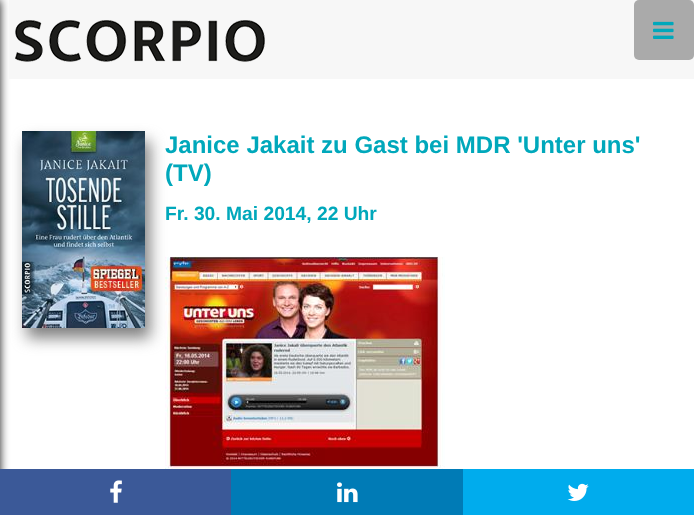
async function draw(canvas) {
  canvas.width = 694;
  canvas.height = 515;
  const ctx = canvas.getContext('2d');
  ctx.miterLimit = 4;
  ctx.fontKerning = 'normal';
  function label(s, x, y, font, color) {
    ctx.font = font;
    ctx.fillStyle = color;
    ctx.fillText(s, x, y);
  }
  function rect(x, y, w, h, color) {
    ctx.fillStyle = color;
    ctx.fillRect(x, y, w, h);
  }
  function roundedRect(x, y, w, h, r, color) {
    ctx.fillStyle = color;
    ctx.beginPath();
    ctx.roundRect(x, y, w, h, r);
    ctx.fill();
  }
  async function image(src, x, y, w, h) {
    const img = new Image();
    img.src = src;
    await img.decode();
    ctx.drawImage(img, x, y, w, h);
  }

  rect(0, 0, 694, 515, '#fff');
  ctx.fillStyle = '#000000e6';
  ctx.filter = 'blur(5px)';
  ctx.beginPath();
  ctx.rect(-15, 0, 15, 515);
  ctx.fill();
  ctx.filter = 'none';
  rect(9, 0, 685, 79, '#f7f7f7');
  roundedRect(634, 0, 60, 60, 5, '#aaa');
  await image('assets/img1.png', 653, 21, 21, 18);
  await image('assets/img2.png', 15, 20, 250, 42);
  ctx.fillStyle = '#808080';
  ctx.filter = 'blur(7.5px)';
  ctx.beginPath();
  ctx.rect(27, 141, 123, 197);
  ctx.fill();
  ctx.filter = 'none';
  await image('assets/img3.png', 22, 131, 123, 197);
  label('Janice Jakait zu Gast bei MDR \'Unter uns\'', 165, 153, 'bold 24px Liberation Sans', '#00a8bb');
  label('(TV)', 165, 181, 'bold 24px Liberation Sans', '#00a8bb');
  label('Fr. 30. Mai 2014, 22 Uhr', 165, 220, 'bold 19.25px Liberation Sans', '#00a8bb');
  await image('assets/img4.png', 165, 256, 280, 213);
  rect(0, 469, 231, 46, '#3b5998');
  await image('assets/img5.png', 110, 480, 12, 23);
  rect(231, 469, 232, 46, '#007bb6');
  await image('assets/img6.png', 337, 482, 21, 21);
  rect(463, 469, 231, 46, '#00aced');
  await image('assets/img7.png', 567, 483, 22, 18);
}

draw(document.querySelector('canvas'));
